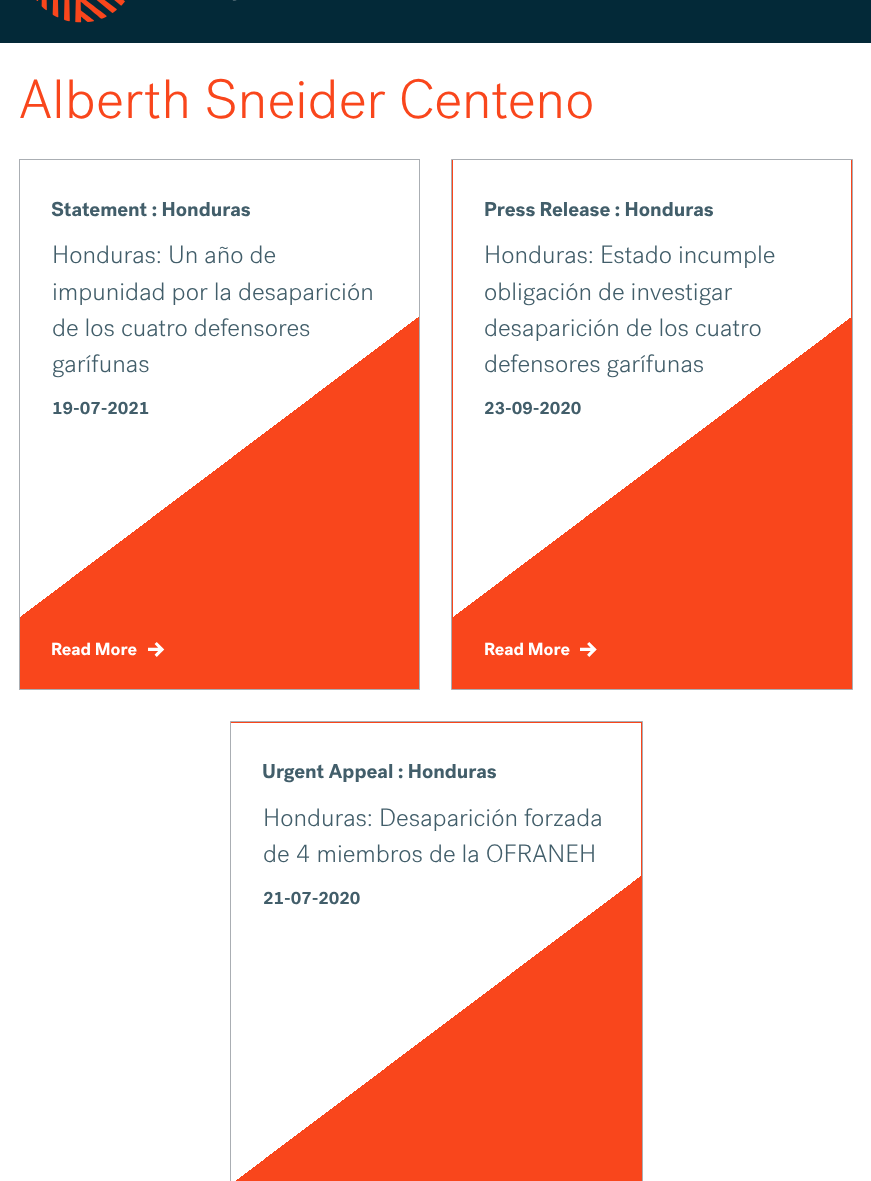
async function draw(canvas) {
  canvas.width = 871;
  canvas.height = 1181;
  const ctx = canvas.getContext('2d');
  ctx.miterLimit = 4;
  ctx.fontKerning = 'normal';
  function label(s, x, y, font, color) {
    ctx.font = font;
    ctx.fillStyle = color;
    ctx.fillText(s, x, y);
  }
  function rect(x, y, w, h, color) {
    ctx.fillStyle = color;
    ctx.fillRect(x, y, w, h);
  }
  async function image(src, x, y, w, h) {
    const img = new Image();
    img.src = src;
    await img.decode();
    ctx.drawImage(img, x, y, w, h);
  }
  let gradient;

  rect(0, 0, 871, 1181, '#fff');
  rect(0, 0, 871, 43, '#032938');
  await image('assets/img1.png', 36, 0, 201, 23);
  label('Alberth Sneider Centeno', 19, 118, '300 55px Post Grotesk', '#f9461c');
  rect(20, 621, 399, 68, '#f9461c');
  ctx.strokeStyle = '#aaaeb3';
  ctx.strokeRect(19.5, 159.5, 400, 530);
  label('Statement : Honduras', 51, 216, 'bold 20px Post Grotesk', '#425e6a');
  label('Honduras: Un año de', 52, 263, '300 25px Post Grotesk', '#425e6a');
  label('impunidad por la desaparición', 52, 300, '300 25px Post Grotesk', '#425e6a');
  gradient = ctx.createLinearGradient(402, 634, 36, 148);
  gradient.addColorStop(0.4, '#f9461c');
  gradient.addColorStop(0.4, '#fff');
  ctx.fillStyle = gradient;
  ctx.fillRect(20, 317, 399, 304);
  label('de los cuatro defensores', 52, 336, '300 25px Post Grotesk', '#425e6a');
  label('garífunas', 52, 372, '300 25px Post Grotesk', '#425e6a');
  label('19-07-2021', 52, 414, 'bold 17.5px Post Grotesk', '#425e6a');
  label('Read More', 51, 655, 'bold 17.5px Post Grotesk', '#fff');
  await image('assets/img2.png', 148, 642, 17, 15);
  ctx.fillStyle = '#f9461c';
  ctx.beginPath();
  ctx.rect(451.5, 159.5, 401, 530);
  ctx.fill();
  ctx.stroke();
  gradient = ctx.createLinearGradient(835, 634, 469, 148);
  gradient.addColorStop(0.4, '#f9461c');
  gradient.addColorStop(0.4, '#fff');
  ctx.fillStyle = gradient;
  ctx.fillRect(453, 160, 398, 457);
  label('Press Release : Honduras', 484, 216, 'bold 20px Post Grotesk', '#425e6a');
  label('Honduras: Estado incumple', 484, 263, '300 25px Post Grotesk', '#425e6a');
  label('obligación de investigar', 484, 300, '300 25px Post Grotesk', '#425e6a');
  label('desaparición de los cuatro', 484, 336, '300 25px Post Grotesk', '#425e6a');
  label('defensores garífunas', 484, 372, '300 25px Post Grotesk', '#425e6a');
  label('23-09-2020', 484, 414, 'bold 17.5px Post Grotesk', '#425e6a');
  label('Read More', 484, 655, 'bold 17.5px Post Grotesk', '#fff');
  await image('assets/img3.png', 580, 642, 17, 15);
  ctx.fillStyle = '#f9461c';
  ctx.beginPath();
  ctx.rect(230.5, 721.5, 412, 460);
  ctx.fill();
  ctx.stroke();
  gradient = ctx.createLinearGradient(621, 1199, 251, 707);
  gradient.addColorStop(0.4, '#f9461c');
  gradient.addColorStop(0.4, '#fff');
  ctx.fillStyle = gradient;
  ctx.fillRect(231, 723, 410, 458);
  label('Urgent Appeal : Honduras', 262, 778, 'bold 20px Post Grotesk', '#425e6a');
  label('Honduras: Desaparición forzada', 263, 826, '300 25px Post Grotesk', '#425e6a');
  label('de 4 miembros de la OFRANEH', 263, 862, '300 25px Post Grotesk', '#425e6a');
  label('21-07-2020', 263, 904, 'bold 17.5px Post Grotesk', '#425e6a');
}

draw(document.querySelector('canvas'));
